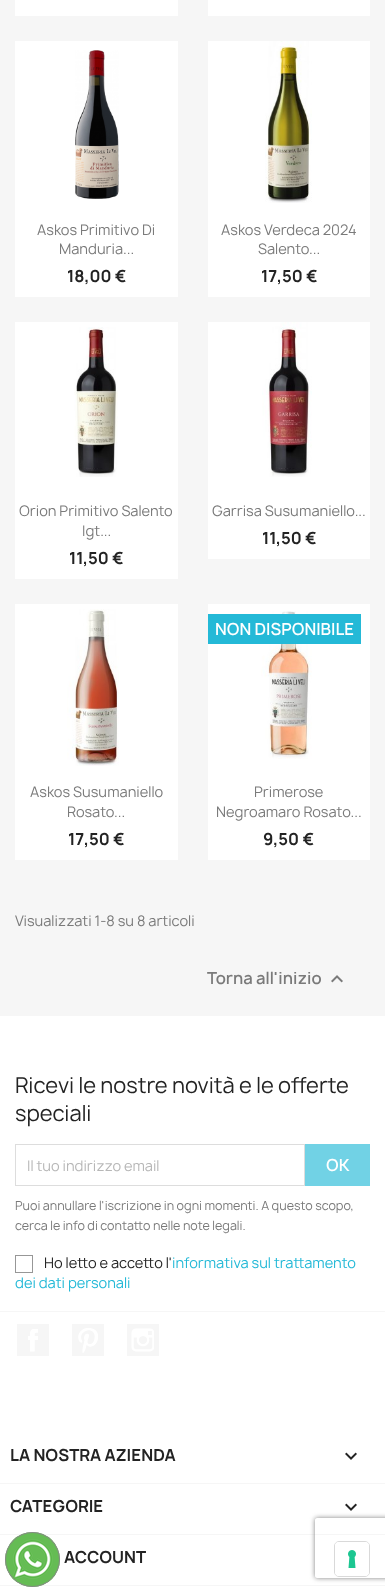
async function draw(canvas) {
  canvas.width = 385;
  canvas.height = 1592;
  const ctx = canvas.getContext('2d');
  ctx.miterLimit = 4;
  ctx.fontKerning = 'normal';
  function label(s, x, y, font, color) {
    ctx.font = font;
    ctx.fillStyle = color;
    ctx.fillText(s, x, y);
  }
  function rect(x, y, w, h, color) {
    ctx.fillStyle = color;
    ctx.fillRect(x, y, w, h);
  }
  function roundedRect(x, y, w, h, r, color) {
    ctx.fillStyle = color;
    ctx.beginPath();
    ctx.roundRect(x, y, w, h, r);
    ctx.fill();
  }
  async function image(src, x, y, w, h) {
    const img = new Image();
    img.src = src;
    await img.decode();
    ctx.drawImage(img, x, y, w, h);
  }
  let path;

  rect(0, 0, 385, 1592, '#fff');
  rect(0, 0, 385, 1016, '#f6f6f6');
  rect(15, 0, 163, 16, '#fff');
  rect(208, 0, 162, 16, '#fff');
  rect(15, 41, 163, 256, '#fff');
  await image('assets/img1.png', 75, 50, 44, 149);
  label('Askos Primitivo Di', 37, 235, '14px Manrope', '#7a7a7a');
  label('Manduria...', 59, 254, '14px Manrope', '#7a7a7a');
  label('18,00 €', 67, 282, 'bold 16px Manrope', '#232323');
  rect(208, 41, 162, 256, '#fff');
  await image('assets/img2.png', 265, 41, 47, 162);
  label('Askos Verdeca 2024', 221, 235, '14px Manrope', '#7a7a7a');
  label('Salento...', 258, 254, '14px Manrope', '#7a7a7a');
  label('17,50 €', 261, 282, 'bold 16px Manrope', '#232323');
  rect(15, 322, 163, 257, '#fff');
  await image('assets/img3.png', 74, 327, 44, 150);
  label('Orion Primitivo Salento', 19, 516, '14px Manrope', '#7a7a7a');
  label('Igt...', 82, 536, '14px Manrope', '#7a7a7a');
  label('11,50 €', 69, 564, 'bold 16px Manrope', '#232323');
  rect(208, 322, 162, 237, '#fff');
  await image('assets/img4.png', 262, 322, 50, 155);
  label('Garrisa Susumaniello...', 212, 516, '14px Manrope', '#7a7a7a');
  label('11,50 €', 262, 544, 'bold 16px Manrope', '#232323');
  rect(15, 604, 163, 256, '#fff');
  await image('assets/img5.png', 67, 609, 52, 157);
  label('Askos Susumaniello', 30, 797, '14px Manrope', '#7a7a7a');
  label('Rosato...', 67, 817, '14px Manrope', '#7a7a7a');
  label('17,50 €', 68, 845, 'bold 16px Manrope', '#232323');
  rect(208, 604, 162, 256, '#fff');
  await image('assets/img6.png', 261, 611, 51, 148);
  rect(208, 614, 153, 30, '#24b9d7');
  label('NON DISPONIBILE', 215, 635, '600 16px Manrope', '#fff');
  label('Primerose', 254, 797, '14px Manrope', '#7a7a7a');
  label('Negroamaro Rosato...', 216, 817, '14px Manrope', '#7a7a7a');
  label('9,50 €', 263, 845, 'bold 16px Manrope', '#232323');
  label('Visualizzati 1-8 su 8 articoli', 15, 926, '14px Manrope', '#7a7a7a');
  label('Torna all\'inizio', 207, 984, '600 16px Manrope', '#7a7a7a');
  await image('assets/img7.png', 331, 975, 12, 8);
  rect(0, 1311, 385, 1, '#f6f6f6');
  label('Ricevi le nostre novità e le offerte', 15, 1093, '21px Manrope', '#232323');
  label('speciali', 15, 1121, '21px Manrope', '#232323');
  ctx.strokeStyle = '#ddd';
  ctx.strokeRect(15.5, 1144.5, 289, 41);
  label('Il tuo indirizzo email', 27, 1171, '14px Manrope', '#b7b7b7');
  rect(305, 1144, 65, 42, '#71d2e5');
  label('OK', 326, 1171, '600 16px Manrope', '#fff');
  label('Puoi annullare l\'iscrizione in ogni momenti. A questo scopo,', 15, 1210, '12px Manrope', '#7a7a7a');
  label('cerca le info di contatto nelle note legali.', 15, 1230, '12px Manrope', '#7a7a7a');
  ctx.strokeStyle = '#979797';
  ctx.strokeRect(15.5, 1255.5, 17, 17);
  label('Ho letto e accetto l\'', 44, 1268, '14px Manrope', '#232323');
  label('informativa sul trattamento', 172, 1268, '14px Manrope', '#24b9d7');
  label('dei dati personali', 15, 1288, '14px Manrope', '#24b9d7');
  rect(17, 1324, 32, 32, '#f6f6f6');
  await image('assets/img8.png', 28, 1329, 10, 23);
  rect(72, 1324, 32, 32, '#f6f6f6');
  await image('assets/img9.png', 78, 1328, 20, 25);
  rect(127, 1324, 32, 32, '#f6f6f6');
  await image('assets/img10.png', 131, 1328, 23, 24);
  rect(0, 1483, 385, 1, '#f6f6f6');
  label('LA NOSTRA AZIENDA', 10, 1461, 'bold 16px Manrope', '#232323');
  await image('assets/img11.png', 345, 1452, 12, 8);
  rect(0, 1534, 385, 1, '#f6f6f6');
  label('CATEGORIE', 10, 1512, 'bold 16px Manrope', '#232323');
  await image('assets/img11.png', 345, 1503, 12, 8);
  rect(0, 1585, 385, 1, '#f6f6f6');
  ctx.fillStyle = '#65bc54';
  ctx.beginPath();
  ctx.arc(32.5, 1559.5, 27.5, 0, 2 * Math.PI);
  ctx.fill();
  await image('assets/img12.png', 10, 1537, 45, 45);
  ctx.beginPath();
  ctx.arc(32.5, 1559.5, 27, 0, 2 * Math.PI);
  ctx.strokeStyle = '#888';
  ctx.stroke();
  label('ACCOUNT', 64, 1563, 'bold 16px Manrope', '#232323');
  ctx.save();
  path = new Path2D('M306 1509H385V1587H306ZM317 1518H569C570 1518 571 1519 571 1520V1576C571 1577 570 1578 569 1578H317C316 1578 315 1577 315 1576V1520C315 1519 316 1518 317 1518Z');
  ctx.clip(path, 'evenodd');
  ctx.fillStyle = '#808080';
  ctx.filter = 'blur(2.5px)';
  ctx.beginPath();
  ctx.roundRect(315, 1518, 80, 60, 2);
  ctx.fill();
  ctx.filter = 'none';
  ctx.restore();
  ctx.beginPath();
  ctx.roundRect(334.5, 1541.5, 35, 35, 4.5);
  ctx.strokeStyle = '#d9d9d9';
  ctx.stroke();
  roundedRect(335, 1542, 34, 34, 4, '#fff');
  await image('assets/img13.png', 348, 1550, 8, 18);
}

draw(document.querySelector('canvas'));
